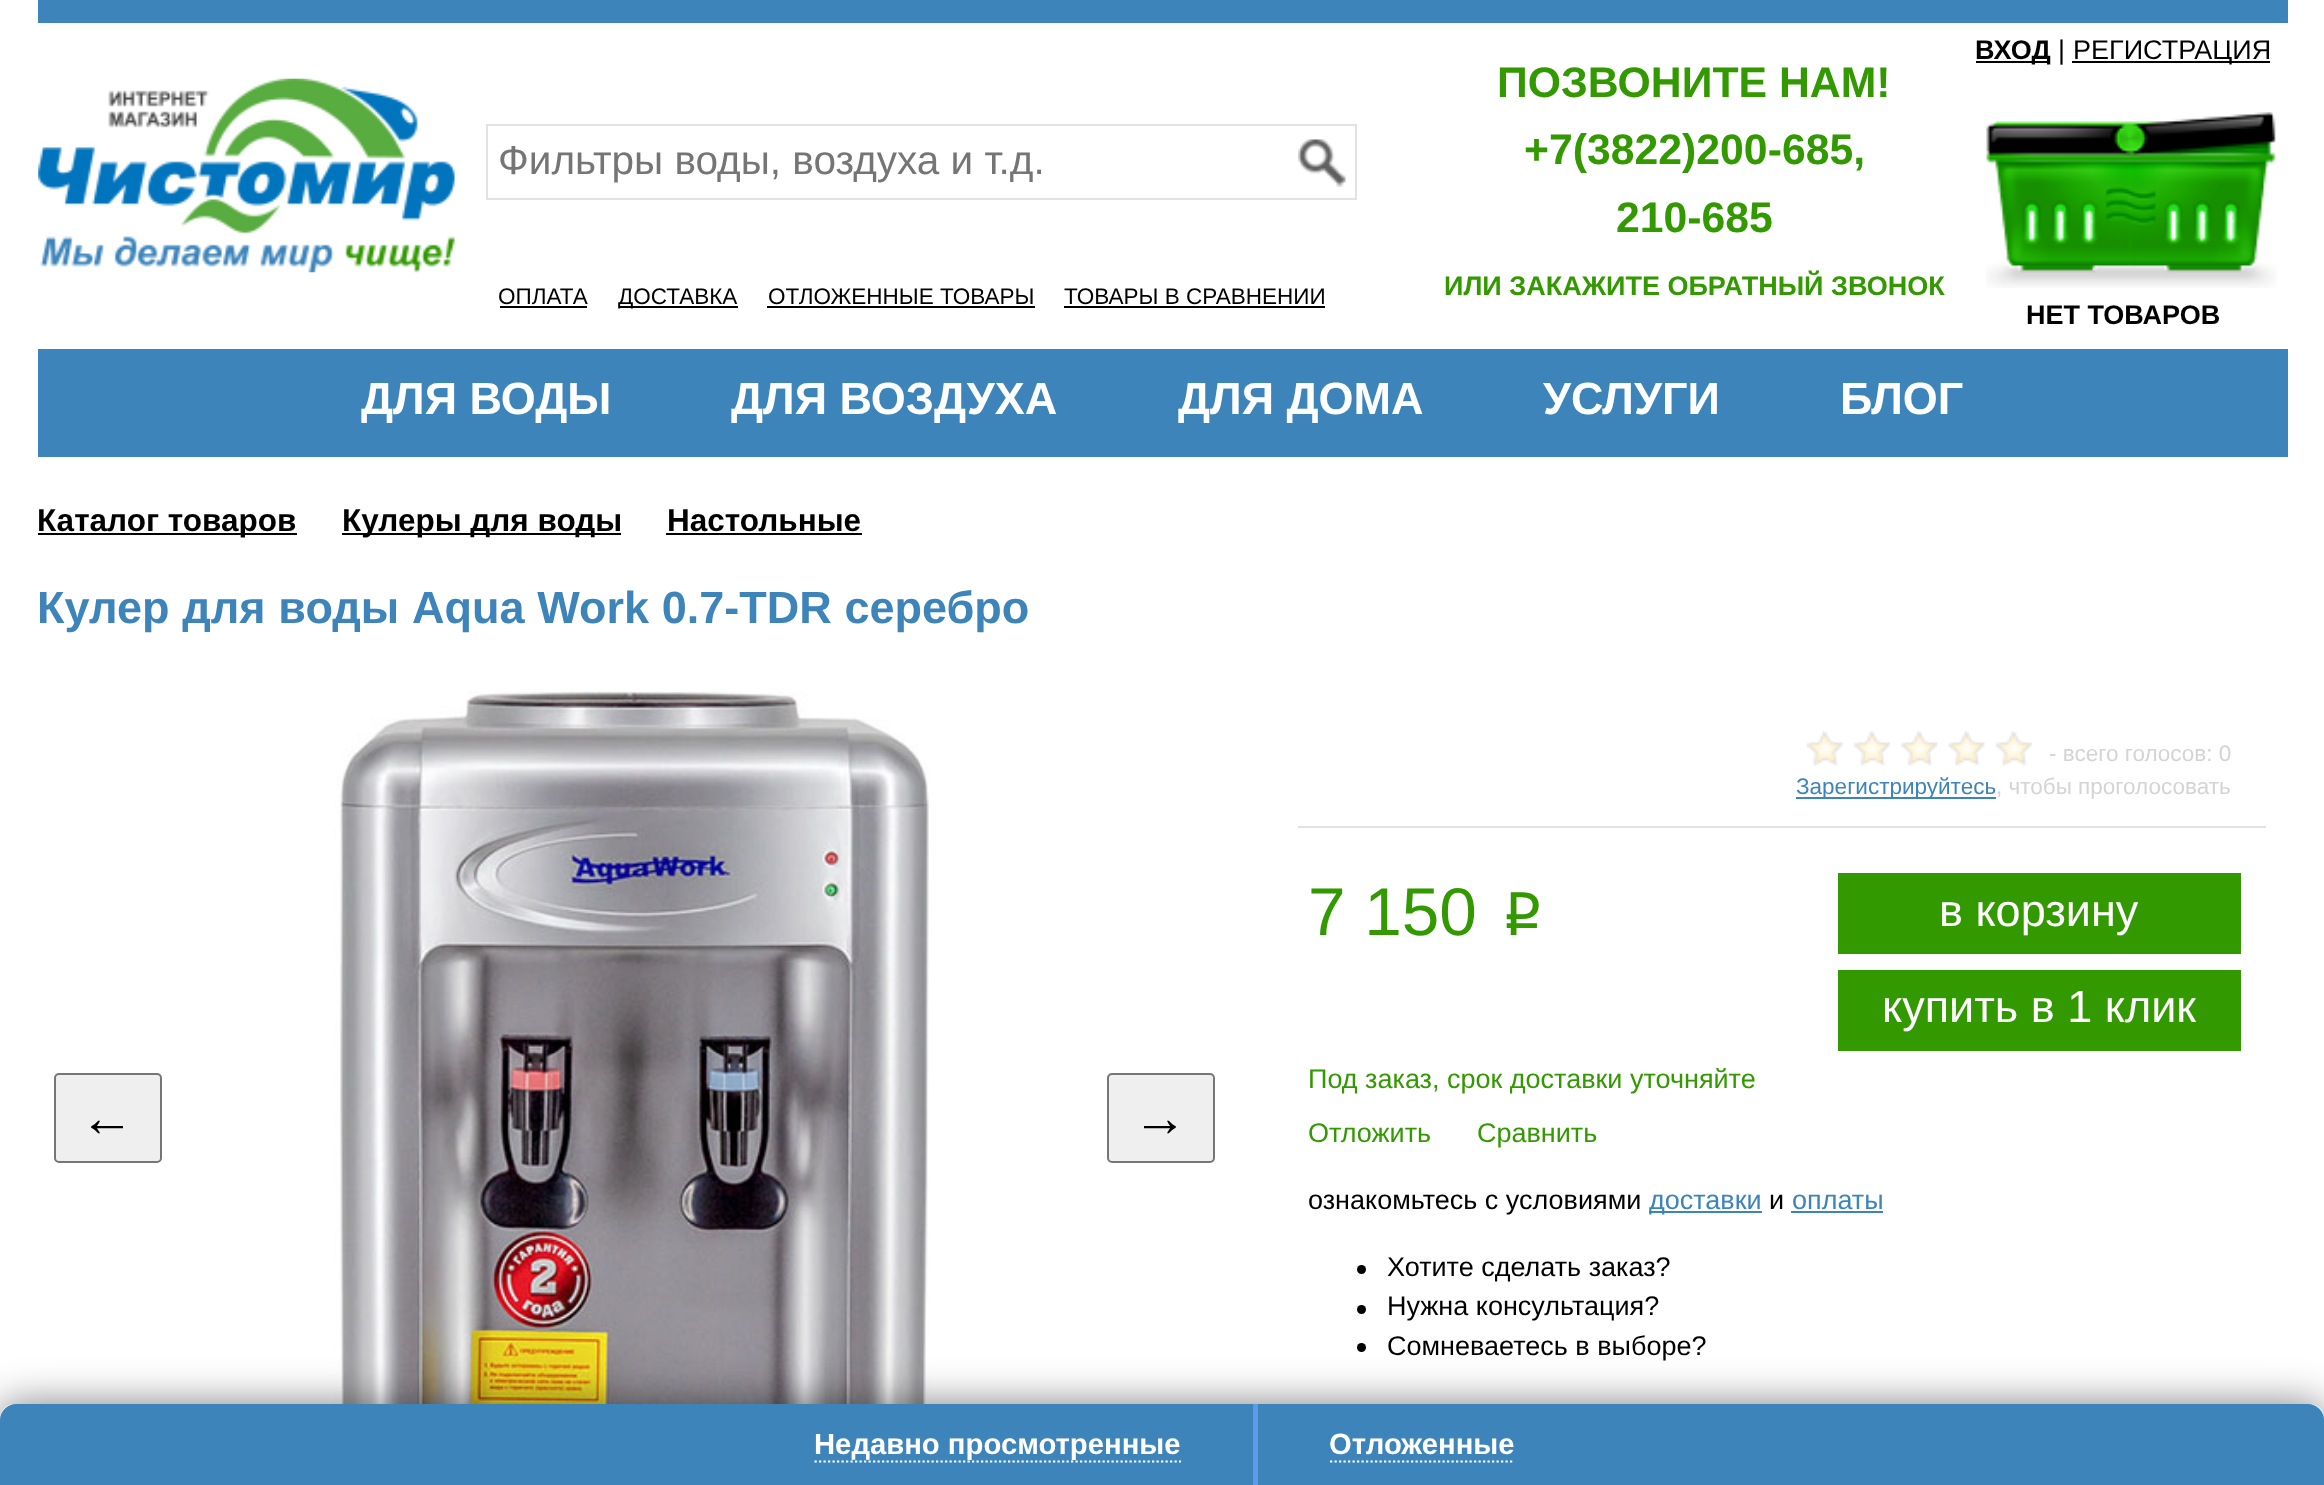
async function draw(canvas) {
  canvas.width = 2324;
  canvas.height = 1485;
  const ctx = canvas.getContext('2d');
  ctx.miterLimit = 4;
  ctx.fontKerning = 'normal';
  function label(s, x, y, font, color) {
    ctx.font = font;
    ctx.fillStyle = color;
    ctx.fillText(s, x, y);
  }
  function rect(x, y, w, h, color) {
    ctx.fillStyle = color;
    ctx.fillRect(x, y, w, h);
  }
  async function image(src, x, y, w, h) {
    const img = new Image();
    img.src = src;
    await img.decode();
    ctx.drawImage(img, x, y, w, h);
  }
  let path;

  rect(0, 0, 2324, 1485, '#fff');
  rect(38, 0, 2250, 23, '#3d84ba');
  await image('assets/img1.png', 38, 78, 417, 195);
  ctx.strokeStyle = '#e2e2e2';
  ctx.lineWidth = 2;
  ctx.strokeRect(487, 125, 869, 74);
  label('Фильтры воды, воздуха и т.д.', 498, 174, '40.5px Liberation Sans', '#757575');
  await image('assets/img2.png', 1298, 139, 48, 48);
  label('ОПЛАТА', 498, 304, '22.5px Liberation Sans', '#000');
  rect(500, 306, 87, 2, '#000');
  rect(619, 306, 119, 2, '#000');
  label('ДОСТАВКА', 618, 304, '22.5px Liberation Sans', '#000');
  label('ОТЛОЖЕННЫЕ ТОВАРЫ', 768, 304, '22.5px Liberation Sans', '#000');
  rect(767, 306, 268, 2, '#000');
  label('ТОВАРЫ В СРАВНЕНИИ', 1064, 304, '22.5px Liberation Sans', '#000');
  rect(1064, 306, 261, 2, '#000');
  label('ПОЗВОНИТЕ НАМ!', 1497, 97, 'bold 42.75px Liberation Sans', '#390');
  label('+7(3822)200-685,', 1524, 164, 'bold 42.75px Liberation Sans', '#390');
  label('210-685', 1616, 232, 'bold 42.75px Liberation Sans', '#390');
  label('ИЛИ ЗАКАЖИТЕ ОБРАТНЫЙ ЗВОНОК', 1444, 295, 'bold 27px Liberation Sans', '#390');
  rect(1976, 61, 74, 2, '#000');
  label('ВХОД', 1975, 59, 'bold 27px Liberation Sans', '#000');
  label('|', 2058, 59, '27px Liberation Sans', '#000');
  rect(2072, 61, 198, 2, '#000');
  label('РЕГИСТРАЦИЯ', 2073, 59, '27px Liberation Sans', '#000');
  await image('assets/img3.png', 1986, 112, 291, 176);
  label('НЕТ ТОВАРОВ', 2026, 324, 'bold 27px Liberation Sans', '#000');
  rect(38, 349, 2250, 108, '#3d84ba');
  label('ДЛЯ ВОДЫ', 361, 414, 'bold 45px Liberation Sans', '#fff');
  label('ДЛЯ ВОЗДУХА', 731, 414, 'bold 45px Liberation Sans', '#fff');
  label('ДЛЯ ДОМА', 1178, 414, 'bold 45px Liberation Sans', '#fff');
  label('УСЛУГИ', 1543, 414, 'bold 45px Liberation Sans', '#fff');
  label('БЛОГ', 1840, 414, 'bold 45px Liberation Sans', '#fff');
  rect(38, 533, 259, 2, '#000');
  label('Каталог товаров', 37, 531, 'bold 31.5px Liberation Sans', '#000');
  rect(342, 533, 279, 2, '#000');
  label('Кулеры для воды', 342, 531, 'bold 31.5px Liberation Sans', '#000');
  label('Настольные', 667, 531, 'bold 31.5px Liberation Sans', '#000');
  rect(666, 533, 196, 2, '#000');
  ctx.wordSpacing = '0.25px';
  label('Кулер для воды Aqua Work 0.7-TDR серебро', 37, 623, 'bold 45px Liberation Sans', '#3d84ba');
  ctx.fillStyle = '#efefef';
  ctx.beginPath();
  ctx.roundRect(55, 1074, 106, 88, 4);
  ctx.fill();
  ctx.strokeStyle = '#767676';
  ctx.stroke();
  ctx.wordSpacing = '0px';
  label('←', 80, 1136, '54px Liberation Sans', '#000');
  await image('assets/img4.png', 334, 691, 595, 713);
  ctx.fillStyle = '#efefef';
  ctx.beginPath();
  ctx.roundRect(1108, 1074, 106, 88, 4);
  ctx.fill();
  ctx.stroke();
  label('→', 1133, 1136, '54px Liberation Sans', '#000');
  rect(1298, 826, 968, 2, '#e2e2e2');
  await image('assets/img5.png', 1806, 731, 37, 35);
  await image('assets/img6.png', 1854, 731, 36, 35);
  await image('assets/img7.png', 1901, 731, 37, 35);
  await image('assets/img8.png', 1948, 731, 37, 35);
  await image('assets/img5.png', 1995, 731, 37, 35);
  label('- всего голосов: 0', 2049, 761, '22.5px Liberation Sans', '#d4d4d4');
  rect(1796, 797, 200, 2, '#3d84ba');
  label('Зарегистрируйтесь', 1796, 794, '22.5px Liberation Sans', '#3d84ba');
  label(', чтобы проголосовать', 1996, 794, '22.5px Liberation Sans', '#d4d4d4');
  label('7 150', 1308, 935, '67.5px Liberation Sans', '#390');
  label('p', 1496, 935, '61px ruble', '#390');
  rect(1838, 873, 403, 81, '#390');
  label('в корзину', 1939, 926, '45px Liberation Sans', '#fff');
  rect(1838, 970, 403, 81, '#390');
  label('купить в 1 клик', 1882, 1022, '45px Liberation Sans', '#fff');
  label('Под заказ, срок доставки уточняйте', 1308, 1088, '27px Liberation Sans', '#390');
  label('Отложить', 1308, 1142, '27px Liberation Sans', '#390');
  label('Сравнить', 1477, 1142, '27px Liberation Sans', '#390');
  label('ознакомьтесь с условиями', 1308, 1209, '27px Liberation Sans', '#000');
  rect(1649, 1211, 113, 2, '#3d84ba');
  label('доставки', 1649, 1209, '27px Liberation Sans', '#3d84ba');
  label('и', 1769, 1209, '27px Liberation Sans', '#000');
  label('оплаты', 1792, 1209, '27px Liberation Sans', '#3d84ba');
  rect(1791, 1211, 92, 2, '#3d84ba');
  ctx.fillStyle = '#000';
  ctx.beginPath();
  ctx.arc(1361.5, 1269.5, 4.5, 0, 2 * Math.PI);
  ctx.fill();
  label('Хотите сделать заказ?', 1387, 1276, '27px Liberation Sans', '#000');
  ctx.beginPath();
  ctx.arc(1361.5, 1309.5, 4.5, 0, 2 * Math.PI);
  ctx.fill();
  label('Нужна консультация?', 1387, 1315, '27px Liberation Sans', '#000');
  ctx.beginPath();
  ctx.arc(1361.5, 1347.5, 4.5, 0, 2 * Math.PI);
  ctx.fill();
  label('Сомневаетесь в выборе?', 1387, 1355, '27px Liberation Sans', '#000');
  ctx.fillStyle = '#3d84ba';
  ctx.beginPath();
  ctx.roundRect(0, 1404, 2324, 81, [16, 16, 0, 0]);
  ctx.fill();
  ctx.save();
  path = new Path2D('M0 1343H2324V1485H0ZM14 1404H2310C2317.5 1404 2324 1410.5 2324 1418V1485H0V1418C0 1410.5 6.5 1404 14 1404Z');
  ctx.clip(path, 'evenodd');
  ctx.fillStyle = '#00000080';
  ctx.filter = 'blur(20px)';
  ctx.beginPath();
  ctx.roundRect(0, 1404, 2324, 81, 14);
  ctx.fill();
  ctx.filter = 'none';
  ctx.restore();
  path = new Path2D('M814.5 1461.5H1181');
  ctx.strokeStyle = '#fff';
  ctx.lineWidth = 2.2;
  ctx.setLineDash([2.25, 2.25]);
  ctx.stroke(path);
  label('Недавно просмотренные', 814, 1454, 'bold 29.25px Liberation Sans', '#fff');
  rect(1253, 1404, 5, 81, '#6098eb');
  label('Отложенные', 1329, 1454, 'bold 29.25px Liberation Sans', '#fff');
  path = new Path2D('M1330 1461.5H1514');
  ctx.stroke(path);
}

draw(document.querySelector('canvas'));
